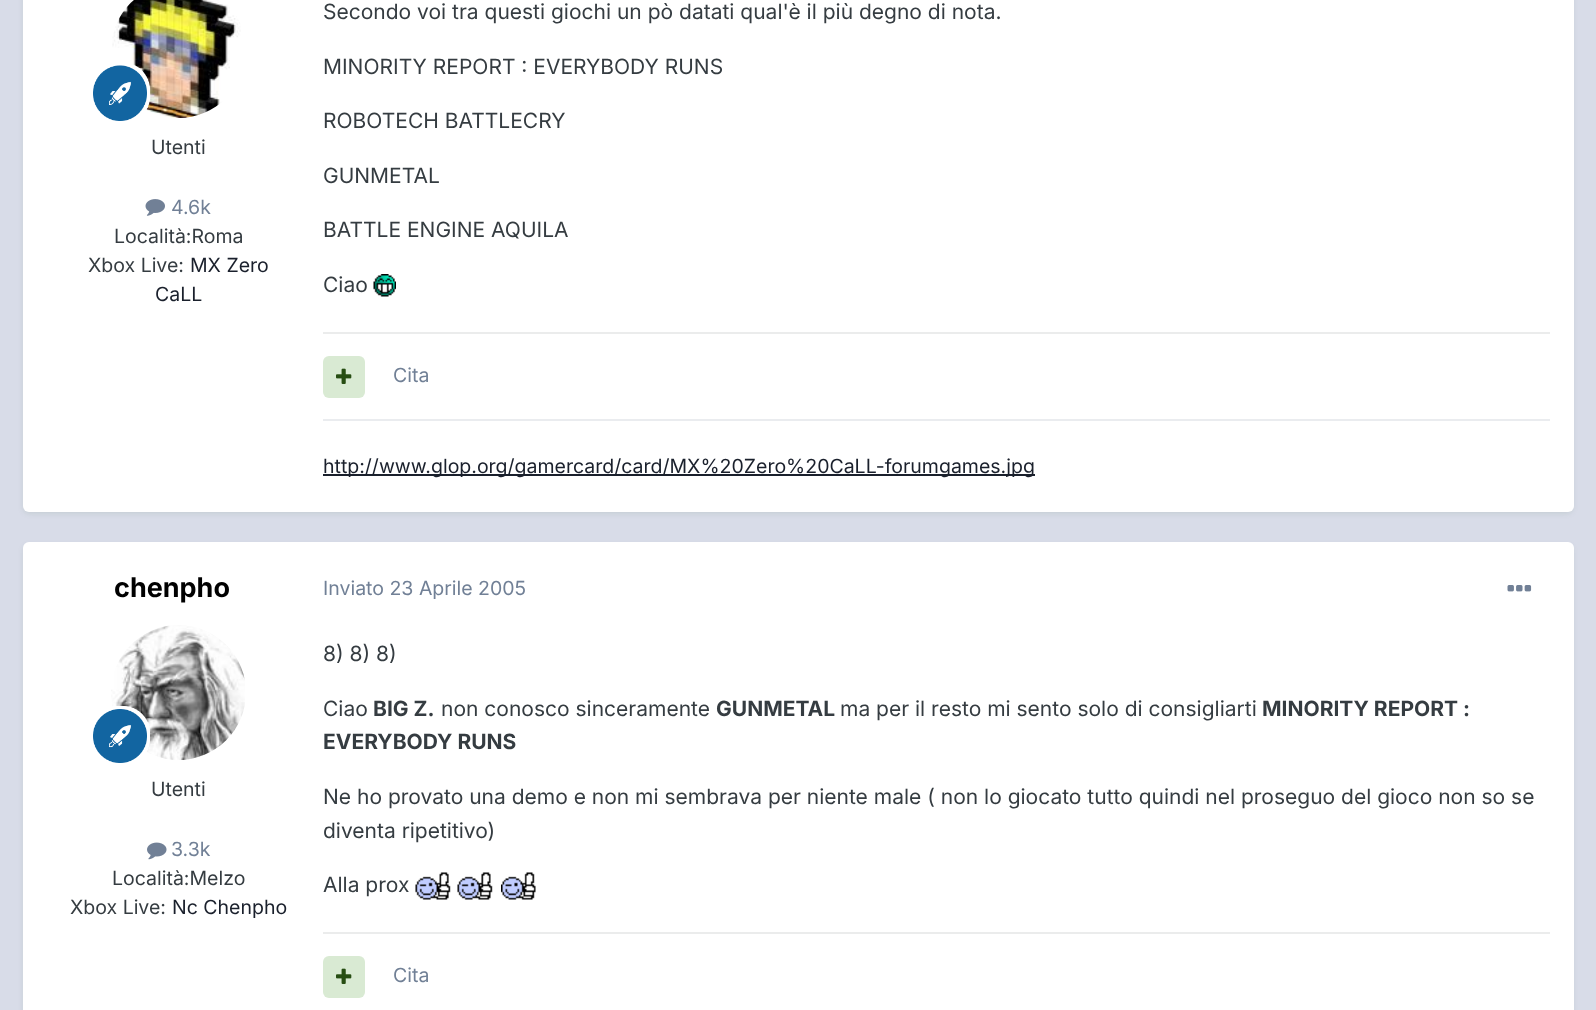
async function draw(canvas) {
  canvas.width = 1596;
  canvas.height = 1010;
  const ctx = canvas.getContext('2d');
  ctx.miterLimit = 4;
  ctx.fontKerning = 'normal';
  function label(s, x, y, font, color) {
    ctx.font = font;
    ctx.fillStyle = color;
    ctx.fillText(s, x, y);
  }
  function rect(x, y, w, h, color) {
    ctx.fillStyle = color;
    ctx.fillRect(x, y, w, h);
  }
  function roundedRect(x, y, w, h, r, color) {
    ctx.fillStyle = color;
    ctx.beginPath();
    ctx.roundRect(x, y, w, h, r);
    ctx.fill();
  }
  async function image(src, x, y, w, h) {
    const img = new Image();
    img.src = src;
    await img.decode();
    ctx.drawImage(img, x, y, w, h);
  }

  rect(0, 0, 1596, 1010, '#d8dce8');
  ctx.fillStyle = '#0138001a';
  ctx.filter = 'blur(3px)';
  ctx.beginPath();
  ctx.roundRect(24, -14, 1548, 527, 5);
  ctx.fill();
  ctx.filter = 'none';
  roundedRect(23, -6, 1551, 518, 6, '#fff');
  await image('assets/img1.png', 112, 0, 129, 118);
  await image('assets/img2.png', 93, 65, 57, 56);
  label('Utenti', 151, 154, '19.5px Inter', '#353c41');
  await image('assets/img3.png', 145, 199, 20, 17);
  label('4.6k', 171, 214, '19.5px Inter', '#718096');
  label('Località:Roma', 114, 243, '19.5px Inter', '#353c41');
  label('Xbox Live:', 88, 272, '19.5px Inter', '#353c41');
  label('MX Zero', 190, 272, '19.5px Inter', '#1a202c');
  label('CaLL', 155, 301, '19.5px Inter', '#1a202c');
  label('Secondo voi tra questi giochi un pò datati qual\'è il più degno di nota.', 323, 19, '21px Inter', '#353c41');
  label('MINORITY REPORT : EVERYBODY RUNS', 323, 74, '21px Inter', '#353c41');
  label('ROBOTECH BATTLECRY', 323, 128, '21px Inter', '#353c41');
  label('GUNMETAL', 323, 183, '21px Inter', '#353c41');
  label('BATTLE ENGINE AQUILA', 323, 237, '21px Inter', '#353c41');
  label('Ciao', 323, 292, '21px Inter', '#353c41');
  await image('assets/img4.png', 373, 274, 23, 23);
  rect(323, 332, 1227, 2, '#ebecec');
  roundedRect(323, 356, 42, 42, 6, '#d9ead3');
  await image('assets/img5.png', 336, 368, 16, 16);
  label('Cita', 393, 382, '19.5px Inter', '#718096');
  rect(323, 419, 1227, 2, '#eaecef');
  rect(323, 474, 712, 2, '#1a202c');
  label('http://www.glop.org/gamercard/card/MX%20Zero%20CaLL-forumgames.jpg', 323, 473, '19.5px Inter', '#1a202c');
  ctx.fillStyle = '#0138001a';
  ctx.filter = 'blur(3px)';
  ctx.beginPath();
  ctx.roundRect(24, 546, 1548, 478, 5);
  ctx.fill();
  ctx.filter = 'none';
  roundedRect(23, 542, 1551, 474, 6, '#fff');
  label('chenpho', 114, 597, 'bold 27px Inter', '#000');
  await image('assets/img6.png', 111, 625, 134, 135);
  await image('assets/img7.png', 93, 706, 57, 57);
  label('Utenti', 151, 796, '19.5px Inter', '#353c41');
  await image('assets/img8.png', 147, 842, 20, 18);
  label('3.3k', 171, 856, '19.5px Inter', '#718096');
  label('Località:Melzo', 112, 885, '19.5px Inter', '#353c41');
  label('Xbox Live:', 70, 914, '19.5px Inter', '#353c41');
  label('Nc Chenpho', 172, 914, '19.5px Inter', '#1a202c');
  label('Inviato 23 Aprile 2005', 323, 595, '19.5px Inter', '#718096');
  await image('assets/img9.png', 1507, 585, 25, 7);
  label('8) 8) 8)', 323, 661, '21px Inter', '#353c41');
  label('Ciao', 323, 716, '21px Inter', '#353c41');
  label('BIG Z.', 373, 716, 'bold 21px Inter', '#353c41');
  label('non conosco sinceramente', 441, 716, '21px Inter', '#353c41');
  label('GUNMETAL', 716, 716, 'bold 21px Inter', '#353c41');
  label('ma per il resto mi sento solo di consigliarti', 840, 716, '21px Inter', '#353c41');
  label('MINORITY REPORT :', 1262, 716, 'bold 21px Inter', '#353c41');
  label('EVERYBODY RUNS', 323, 749, 'bold 21px Inter', '#353c41');
  label('Ne ho provato una demo e non mi sembrava per niente male ( non lo giocato tutto quindi nel proseguo del gioco non so se', 323, 804, '21px Inter', '#353c41');
  label('diventa ripetitivo)', 323, 838, '21px Inter', '#353c41');
  label('Alla prox', 323, 892, '21px Inter', '#353c41');
  await image('assets/img10.png', 415, 872, 36, 28);
  await image('assets/img11.png', 457, 872, 36, 28);
  await image('assets/img12.png', 501, 872, 35, 28);
  rect(323, 932, 1227, 2, '#ebecec');
  roundedRect(323, 956, 42, 42, 6, '#d9ead3');
  await image('assets/img5.png', 336, 968, 16, 16);
  label('Cita', 393, 982, '19.5px Inter', '#718096');
}

draw(document.querySelector('canvas'));
